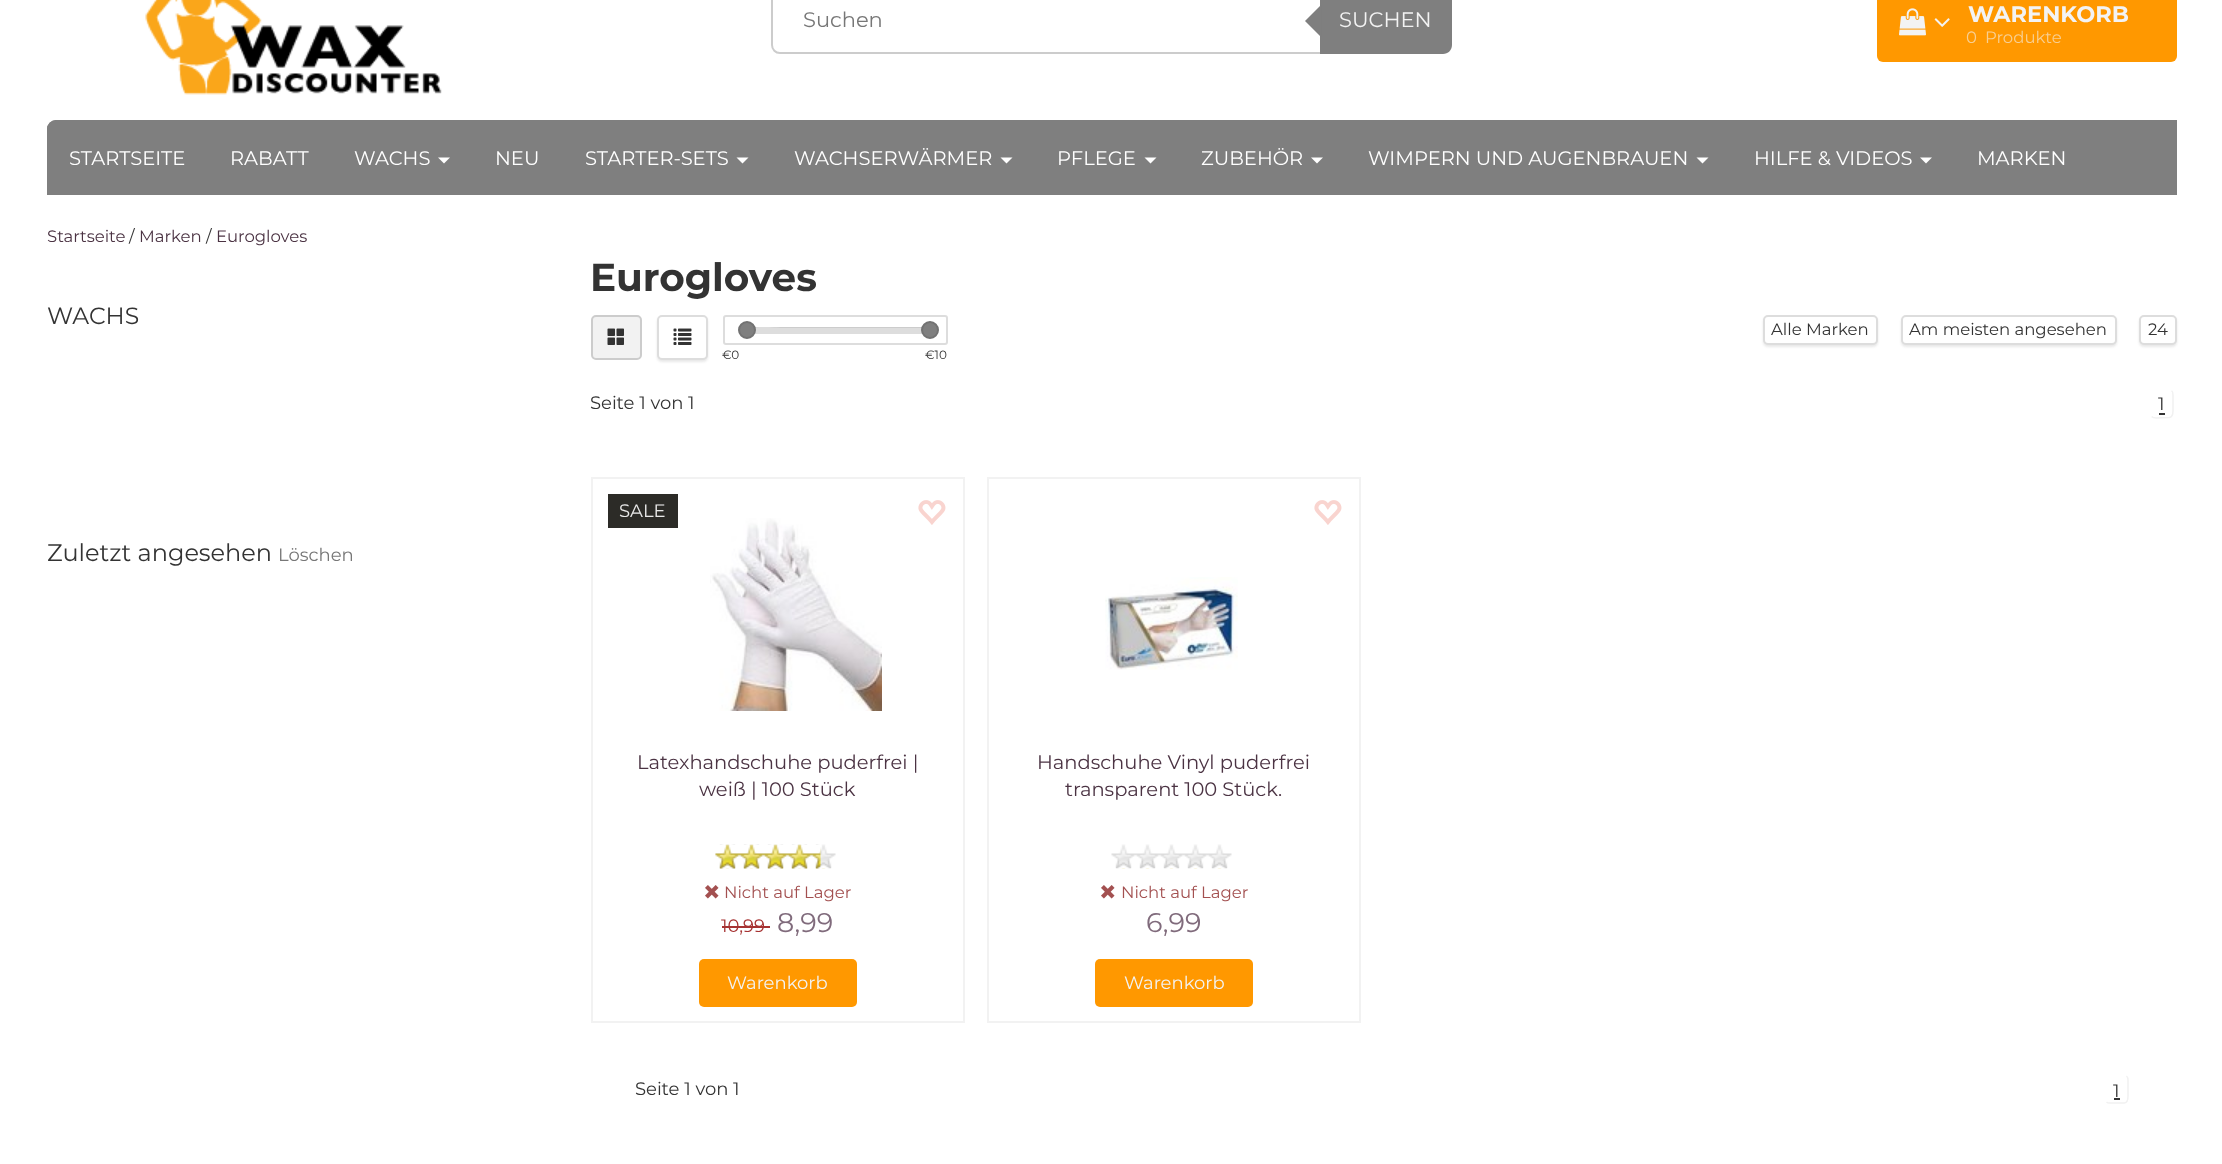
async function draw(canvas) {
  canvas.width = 2222;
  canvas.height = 1164;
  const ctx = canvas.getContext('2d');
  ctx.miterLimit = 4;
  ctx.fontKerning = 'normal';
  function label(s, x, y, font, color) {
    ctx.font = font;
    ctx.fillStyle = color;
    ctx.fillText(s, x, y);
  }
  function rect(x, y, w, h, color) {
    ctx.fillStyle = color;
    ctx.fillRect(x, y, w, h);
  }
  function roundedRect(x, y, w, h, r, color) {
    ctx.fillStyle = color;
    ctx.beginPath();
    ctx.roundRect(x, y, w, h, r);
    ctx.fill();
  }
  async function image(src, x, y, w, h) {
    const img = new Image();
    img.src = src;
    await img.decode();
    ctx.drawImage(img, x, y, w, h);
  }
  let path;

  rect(0, 0, 2222, 1164, '#fff');
  await image('assets/img1.png', 145, 0, 297, 95);
  path = new Path2D('M780-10H1321V53H780C775.5 53 772 49.5 772 45V-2C772-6.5 775.5-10 780-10Z');
  ctx.strokeStyle = '#ccc';
  ctx.lineWidth = 2;
  ctx.stroke(path);
  label('Suchen', 803, 27, '21px Montserrat', '#777');
  ctx.fillStyle = '#7f7f7f';
  path = new Path2D('M1320-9H1443C1448-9 1452-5 1452 0V45C1452 50 1448 54 1443 54H1320Z');
  ctx.fill(path);
  path = new Path2D('M1321.5 4.5V37.5L1305 21Z');
  ctx.fill(path);
  label('SUCHEN', 1339, 27, '21px Montserrat', '#f3f3f3');
  roundedRect(1877, -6, 300, 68, 6, '#ff9800');
  await image('assets/img2.png', 1899, 8, 27, 28);
  await image('assets/img3.png', 1934, 18, 16, 9);
  label('WARENKORB', 1968, 22, 'bold 22.5px Montserrat', '#f3f3f3');
  label('0', 1966, 43, '16.5px Montserrat', '#f8cf92');
  label('Produkte', 1985, 43, '16.5px Montserrat', '#f8cf92');
  ctx.fillStyle = '#7f7f7f';
  ctx.beginPath();
  ctx.roundRect(47, 120, 2130, 75, [9, 0, 0, 0]);
  ctx.fill();
  ctx.beginPath();
  ctx.roundRect(47, 120, 162, 75, [9, 0, 0, 0]);
  ctx.fill();
  label('STARTSEITE', 69, 165, '19.5px Montserrat', '#fff');
  label('RABATT', 230, 165, '19.5px Montserrat', '#fff');
  label('WACHS', 354, 165, '19.5px Montserrat', '#fff');
  path = new Path2D('M438 157.5H450L444 163.5Z');
  ctx.fill(path);
  label('NEU', 495, 165, '19.5px Montserrat', '#fff');
  label('STARTER-SETS', 585, 165, '19.5px Montserrat', '#fff');
  path = new Path2D('M736.5 157.5H748.5L742.5 163.5Z');
  ctx.fill(path);
  label('WACHSERWÄRMER', 794, 165, '19.5px Montserrat', '#fff');
  path = new Path2D('M1000.5 157.5H1012.5L1006.5 163.5Z');
  ctx.fill(path);
  label('PFLEGE', 1057, 165, '19.5px Montserrat', '#fff');
  path = new Path2D('M1144.5 157.5H1156.5L1150.5 163.5Z');
  ctx.fill(path);
  label('ZUBEHÖR', 1201, 165, '19.5px Montserrat', '#fff');
  path = new Path2D('M1311 157.5H1323L1317 163.5Z');
  ctx.fill(path);
  label('WIMPERN UND AUGENBRAUEN', 1368, 165, '19.5px Montserrat', '#fff');
  path = new Path2D('M1696.5 157.5H1708.5L1702.5 163.5Z');
  ctx.fill(path);
  label('HILFE & VIDEOS', 1754, 165, '19.5px Montserrat', '#fff');
  path = new Path2D('M1920 157.5H1932L1926 163.5Z');
  ctx.fill(path);
  label('MARKEN', 1977, 165, '19.5px Montserrat', '#fff');
  label('Startseite', 47, 242, '16.5px Montserrat', '#4b3343');
  label('/', 129, 242, '16.5px Montserrat', '#333');
  label('Marken', 139, 242, '16.5px Montserrat', '#4b3343');
  label('/', 206, 242, '16.5px Montserrat', '#333');
  label('Eurogloves', 216, 242, '16.5px Montserrat', '#4b3343');
  label('WACHS', 47, 324, '23.5px Montserrat', '#333');
  label('Zuletzt angesehen', 47, 561, '24px Montserrat', '#333');
  label('Löschen', 278, 561, '18px Montserrat', '#777');
  label('Eurogloves', 590, 291, 'bold 39px Montserrat', '#333');
  ctx.fillStyle = '#2219191a';
  ctx.filter = 'blur(1px)';
  ctx.beginPath();
  ctx.roundRect(1763, 317, 115, 30, 5);
  ctx.fill();
  ctx.filter = 'none';
  ctx.fillStyle = '#fff';
  ctx.beginPath();
  ctx.roundRect(1764, 316, 113, 28, 4);
  ctx.fill();
  ctx.strokeStyle = '#ddd';
  ctx.stroke();
  label('Alle Marken', 1771, 335, '16.5px Montserrat', '#333');
  ctx.fillStyle = '#2219191a';
  ctx.filter = 'blur(1px)';
  ctx.beginPath();
  ctx.roundRect(1901, 317, 216, 30, 5);
  ctx.fill();
  ctx.filter = 'none';
  ctx.fillStyle = '#fff';
  ctx.beginPath();
  ctx.roundRect(1902, 316, 214, 28, 4);
  ctx.fill();
  ctx.stroke();
  label('Am meisten angesehen', 1909, 335, '16.5px Montserrat', '#333');
  ctx.fillStyle = '#2219191a';
  ctx.filter = 'blur(1px)';
  ctx.beginPath();
  ctx.roundRect(2139, 317, 38, 30, 5);
  ctx.fill();
  ctx.filter = 'none';
  ctx.fillStyle = '#fff';
  ctx.beginPath();
  ctx.roundRect(2140, 316, 36, 28, 4);
  ctx.fill();
  ctx.stroke();
  label('24', 2148, 335, '16.5px Montserrat', '#333');
  ctx.fillStyle = '#f2f2f2';
  ctx.beginPath();
  ctx.roundRect(592, 316, 49, 43, 4);
  ctx.fill();
  ctx.strokeStyle = '#ccc';
  ctx.stroke();
  await image('assets/img4.png', 607, 328, 17, 17);
  ctx.fillStyle = '#2219191a';
  ctx.filter = 'blur(1px)';
  ctx.beginPath();
  ctx.roundRect(657, 317, 51, 45, 5);
  ctx.fill();
  ctx.filter = 'none';
  ctx.fillStyle = '#fff';
  ctx.beginPath();
  ctx.roundRect(658, 316, 49, 43, 4);
  ctx.fill();
  ctx.strokeStyle = '#ddd';
  ctx.stroke();
  await image('assets/img5.png', 673, 328, 19, 17);
  ctx.beginPath();
  ctx.roundRect(724, 316, 223, 28, 2);
  ctx.stroke();
  rect(755, 327, 167, 7, '#ddd');
  ctx.fillStyle = '#ccc';
  path = new Path2D('M753 327C750 327 750 329 748 331V332C748 324 776 328 782 328H928L931 330L932 332V331C930 328 931 328 927 327Z');
  ctx.fill(path);
  ctx.fillStyle = '#7f7f7f';
  ctx.beginPath();
  ctx.arc(747, 330, 8, 0, 2 * Math.PI);
  ctx.fill();
  ctx.strokeStyle = '#727272';
  ctx.stroke();
  ctx.beginPath();
  ctx.arc(930, 330, 8, 0, 2 * Math.PI);
  ctx.fill();
  ctx.stroke();
  label('€0', 722, 359, '12px Montserrat', '#333');
  label('€10', 925, 359, '12px Montserrat', '#333');
  label('Seite 1 von 1', 590, 409, '18px Montserrat', '#333');
  path = new Path2D('M2171.5 390.5C2173.5 392 2173 394.5 2173 396.5V410.5C2173 413 2173 417 2169.5 417.5L2156.5 418C2154.5 418 2153 418 2151.5 416.5');
  ctx.strokeStyle = '#f1f1f1';
  ctx.lineWidth = 1.5;
  ctx.stroke(path);
  path = new Path2D('M2151.5 416.5C2149.5 415 2150 412.5 2150 410.5V396.5C2150 394 2150 390 2153.5 389.5L2166.5 389C2168.5 389 2170 389 2171.5 390.5');
  ctx.strokeStyle = '#fff';
  ctx.stroke(path);
  label('1', 2158, 410, '18px Montserrat', '#333');
  rect(2159, 413, 6, 2, '#333');
  ctx.strokeStyle = '#f2f2f2';
  ctx.lineWidth = 2;
  ctx.strokeRect(592, 478, 372, 544);
  rect(608, 494, 70, 34, '#2c2b27');
  label('SALE', 619, 517, '18px Montserrat', '#e9e9e9');
  await image('assets/img6.png', 918, 500, 28, 25);
  await image('assets/img7.png', 710, 518, 172, 193);
  label('Latexhandschuhe puderfrei |', 637, 769, '19.5px Montserrat', '#4b3343');
  label('weiß | 100 Stück', 699, 796, '19.5px Montserrat', '#4b3343');
  await image('assets/img8.png', 715, 844, 121, 25);
  await image('assets/img9.png', 715, 844, 106, 25);
  await image('assets/img10.png', 705, 885, 14, 14);
  label('Nicht auf Lager', 724, 898, '16.5px Montserrat', '#a35050');
  label('10,99', 721, 932, '18px Montserrat', '#a63232');
  rect(722, 926, 48, 2, '#a63232');
  label('8,99', 777, 932, '27px Montserrat', '#806b7c');
  roundedRect(699, 959, 158, 48, 5, '#ff9800');
  label('Warenkorb', 727, 989, '18px Montserrat', '#f3f3f3');
  ctx.strokeRect(988, 478, 372, 544);
  await image('assets/img6.png', 1314, 500, 28, 25);
  await image('assets/img11.png', 1105, 577, 133, 93);
  label('Handschuhe Vinyl puderfrei', 1037, 769, '19.5px Montserrat', '#4b3343');
  label('transparent 100 Stück.', 1065, 796, '19.5px Montserrat', '#4b3343');
  await image('assets/img12.png', 1111, 844, 121, 25);
  await image('assets/img10.png', 1101, 885, 14, 14);
  label('Nicht auf Lager', 1121, 898, '16.5px Montserrat', '#a35050');
  label('6,99', 1146, 932, '27px Montserrat', '#806b7c');
  roundedRect(1095, 959, 158, 48, 5, '#ff9800');
  label('Warenkorb', 1124, 989, '18px Montserrat', '#f3f3f3');
  label('Seite 1 von 1', 635, 1095, '18px Montserrat', '#333');
  path = new Path2D('M2126.5 1076C2128.5 1077.5 2128 1080 2128 1082V1096C2128 1098.5 2128 1102.5 2124.5 1103H2111.5C2109.5 1103 2108 1103.5 2106.5 1102');
  ctx.strokeStyle = '#f1f1f1';
  ctx.lineWidth = 1.5;
  ctx.stroke(path);
  label('1', 2113, 1097, '18px Montserrat', '#333');
  rect(2114, 1098, 6, 2, '#333');
}

draw(document.querySelector('canvas'));
